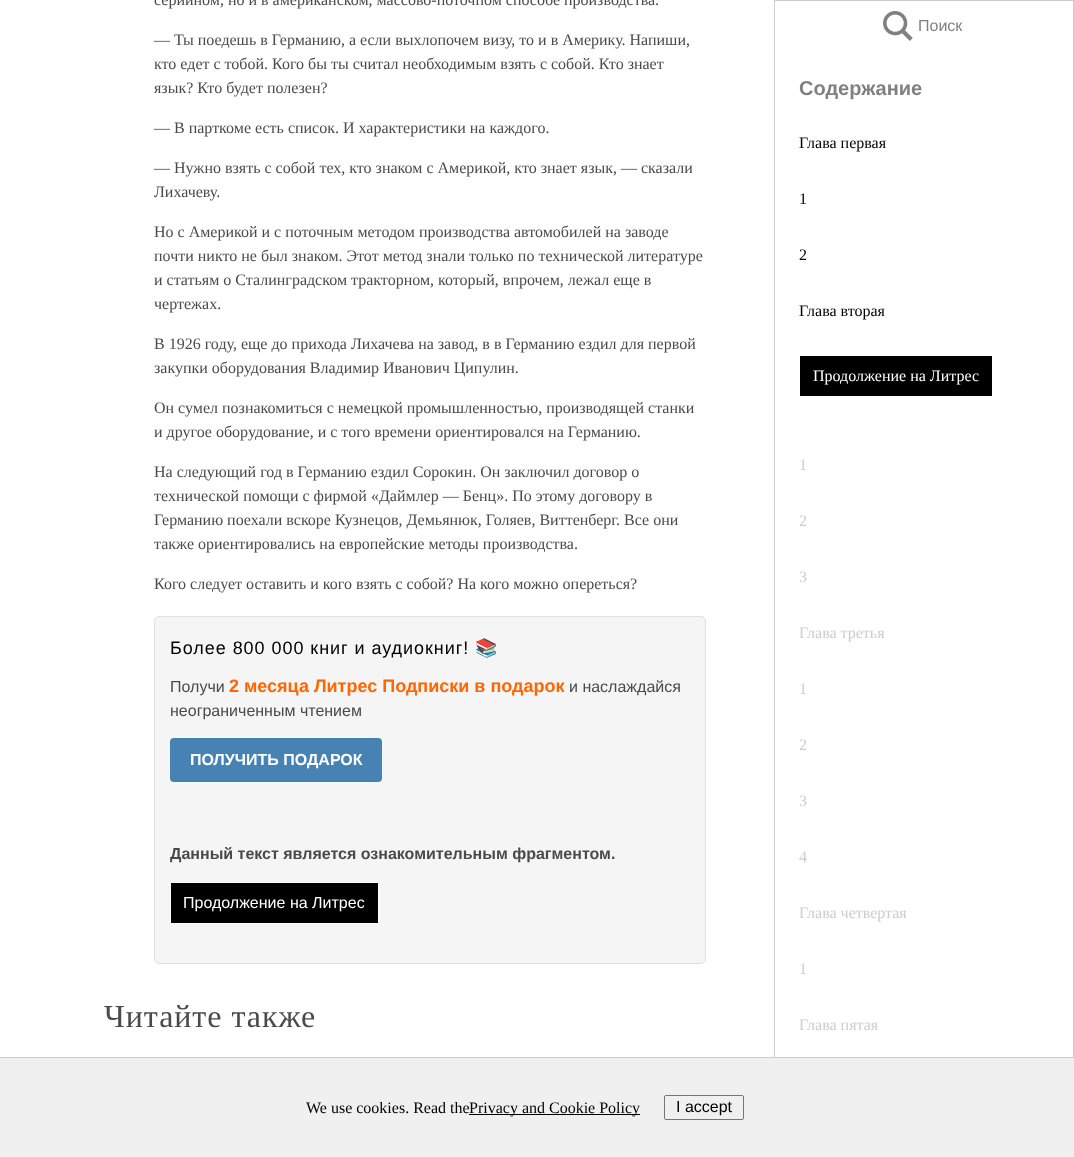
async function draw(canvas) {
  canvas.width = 1074;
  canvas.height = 1157;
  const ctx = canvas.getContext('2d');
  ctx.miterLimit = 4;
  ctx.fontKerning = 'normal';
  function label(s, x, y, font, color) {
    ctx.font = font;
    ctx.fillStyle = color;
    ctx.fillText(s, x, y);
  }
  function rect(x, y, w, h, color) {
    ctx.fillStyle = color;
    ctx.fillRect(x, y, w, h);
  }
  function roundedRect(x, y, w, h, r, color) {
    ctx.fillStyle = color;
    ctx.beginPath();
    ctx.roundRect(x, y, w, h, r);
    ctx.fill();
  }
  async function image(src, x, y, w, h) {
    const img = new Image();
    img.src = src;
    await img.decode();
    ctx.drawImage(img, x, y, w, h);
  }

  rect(0, 0, 1074, 1157, '#fff');
  label('серийном, но и в американском, массово-поточпом способе производства.', 154, 5, '16px Liberation Serif', '#4a4a4a');
  label('— Ты поедешь в Германию, а если выхлопочем визу, то и в Америку. Напиши,', 154, 45, '16px Liberation Serif', '#4a4a4a');
  label('кто едет с тобой. Кого бы ты считал необходимым взять с собой. Кто знает', 154, 69, '16px Liberation Serif', '#4a4a4a');
  label('язык? Кто будет полезен?', 154, 93, '16px Liberation Serif', '#4a4a4a');
  label('— В парткоме есть список. И характеристики на каждого.', 154, 133, '16px Liberation Serif', '#4a4a4a');
  label('— Нужно взять с собой тех, кто знаком с Америкой, кто знает язык, — сказали', 154, 173, '16px Liberation Serif', '#4a4a4a');
  label('Лихачеву.', 154, 197, '16px Liberation Serif', '#4a4a4a');
  label('Но с Америкой и с поточным методом производства автомобилей на заводе', 154, 237, '16px Liberation Serif', '#4a4a4a');
  label('почти никто не был знаком. Этот метод знали только по технической литературе', 154, 261, '16px Liberation Serif', '#4a4a4a');
  label('и статьям о Сталинградском тракторном, который, впрочем, лежал еще в', 154, 285, '16px Liberation Serif', '#4a4a4a');
  label('чертежах.', 154, 309, '16px Liberation Serif', '#4a4a4a');
  label('В 1926 году, еще до прихода Лихачева на завод, в в Германию ездил для первой', 154, 349, '16px Liberation Serif', '#4a4a4a');
  label('закупки оборудования Владимир Иванович Ципулин.', 154, 373, '16px Liberation Serif', '#4a4a4a');
  label('Он сумел познакомиться с немецкой промышленностью, производящей станки', 154, 413, '16px Liberation Serif', '#4a4a4a');
  label('и другое оборудование, и с того времени ориентировался на Германию.', 154, 437, '16px Liberation Serif', '#4a4a4a');
  label('На следующий год в Германию ездил Сорокин. Он заключил договор о', 154, 477, '16px Liberation Serif', '#4a4a4a');
  label('технической помощи с фирмой «Даймлер — Бенц». По этому договору в', 154, 501, '16px Liberation Serif', '#4a4a4a');
  label('Германию поехали вскоре Кузнецов, Демьянюк, Голяев, Виттенберг. Все они', 154, 525, '16px Liberation Serif', '#4a4a4a');
  label('также ориентировались на европейские методы производства.', 154, 549, '16px Liberation Serif', '#4a4a4a');
  label('Кого следует оставить и кого взять с собой? На кого можно опереться?', 154, 589, '16px Liberation Serif', '#4a4a4a');
  ctx.fillStyle = '#f5f5f5';
  ctx.beginPath();
  ctx.roundRect(154.5, 616.5, 551, 347, 4.5);
  ctx.fill();
  ctx.strokeStyle = '#e0e0e0';
  ctx.stroke();
  ctx.letterSpacing = '0.95px';
  label('Более 800 000 книг и аудиокниг!', 170, 654, '18px Liberation Sans', '#000');
  label('📚', 475, 654, '18px Noto Color Emoji', '#000');
  ctx.letterSpacing = '0px';
  label('Получи', 170, 692, '16px Liberation Sans', '#4a4a4a');
  label('2 месяца Литрес Подписки в подарок', 229, 692, 'bold 18px Liberation Sans', '#f60');
  label('и наслаждайся', 569, 692, '16px Liberation Sans', '#4a4a4a');
  label('неограниченным чтением', 170, 716, '16px Liberation Sans', '#4a4a4a');
  roundedRect(170, 738, 212, 44, 4, '#4682b4');
  label('ПОЛУЧИТЬ ПОДАРОК', 190, 765, 'bold 16px Liberation Sans', '#fff');
  label('Данный текст является ознакомительным фрагментом.', 170, 859, 'bold 16px Liberation Sans', '#4a4a4a');
  ctx.fillStyle = '#000';
  ctx.beginPath();
  ctx.rect(170.5, 882.5, 208, 41);
  ctx.fill();
  ctx.strokeStyle = '#fff';
  ctx.stroke();
  label('Продолжение на Литрес', 183, 908, '16px Liberation Sans', '#fff');
  ctx.strokeStyle = '#ccc';
  ctx.strokeRect(774.5, 0.5, 299, 1156);
  rect(0, 1058, 1074, 99, '#f0f0f0');
  rect(0, 1057, 1074, 1, '#ccc');
  label('We use cookies. Read the', 306, 1113, '16px Liberation Serif', '#000');
  rect(469, 1114, 171, 1, '#000');
  label('Privacy and Cookie Policy', 469, 1113, '16px Liberation Serif', '#000');
  ctx.beginPath();
  ctx.roundRect(664.5, 1095.5, 79, 24, 1.5);
  ctx.strokeStyle = '#767676';
  ctx.stroke();
  label('I accept', 676, 1112, '16px Liberation Sans', '#000');
  await image('assets/img1.png', 883, 11, 30, 30);
  label('Поиск', 918, 31, '16px Liberation Sans', '#808080');
  label('Содержание', 799, 95, 'bold 20px Liberation Sans', '#808080');
  label('Глава первая', 799, 148, '16px Liberation Serif', '#000');
  label('1', 799, 204, '16px Liberation Serif', '#000');
  label('2', 799, 260, '16px Liberation Serif', '#000');
  label('Глава вторая', 799, 316, '16px Liberation Serif', '#000');
  rect(800, 356, 192, 40, '#000');
  label('Продолжение на Литрес', 813, 381, '16px Liberation Serif', '#fff');
  label('1', 799, 470, '16px Liberation Serif', '#ccc');
  label('2', 799, 526, '16px Liberation Serif', '#ccc');
  label('3', 799, 582, '16px Liberation Serif', '#ccc');
  label('Глава третья', 799, 638, '16px Liberation Serif', '#ccc');
  label('1', 799, 694, '16px Liberation Serif', '#ccc');
  label('2', 799, 750, '16px Liberation Serif', '#ccc');
  label('3', 799, 806, '16px Liberation Serif', '#ccc');
  label('4', 799, 862, '16px Liberation Serif', '#ccc');
  label('Глава четвертая', 799, 918, '16px Liberation Serif', '#ccc');
  label('1', 799, 974, '16px Liberation Serif', '#ccc');
  label('Глава пятая', 799, 1030, '16px Liberation Serif', '#ccc');
  ctx.letterSpacing = '0.95px';
  label('Читайте также', 104, 1027, '32px Liberation Serif', '#4a4a4a');
}

draw(document.querySelector('canvas'));
